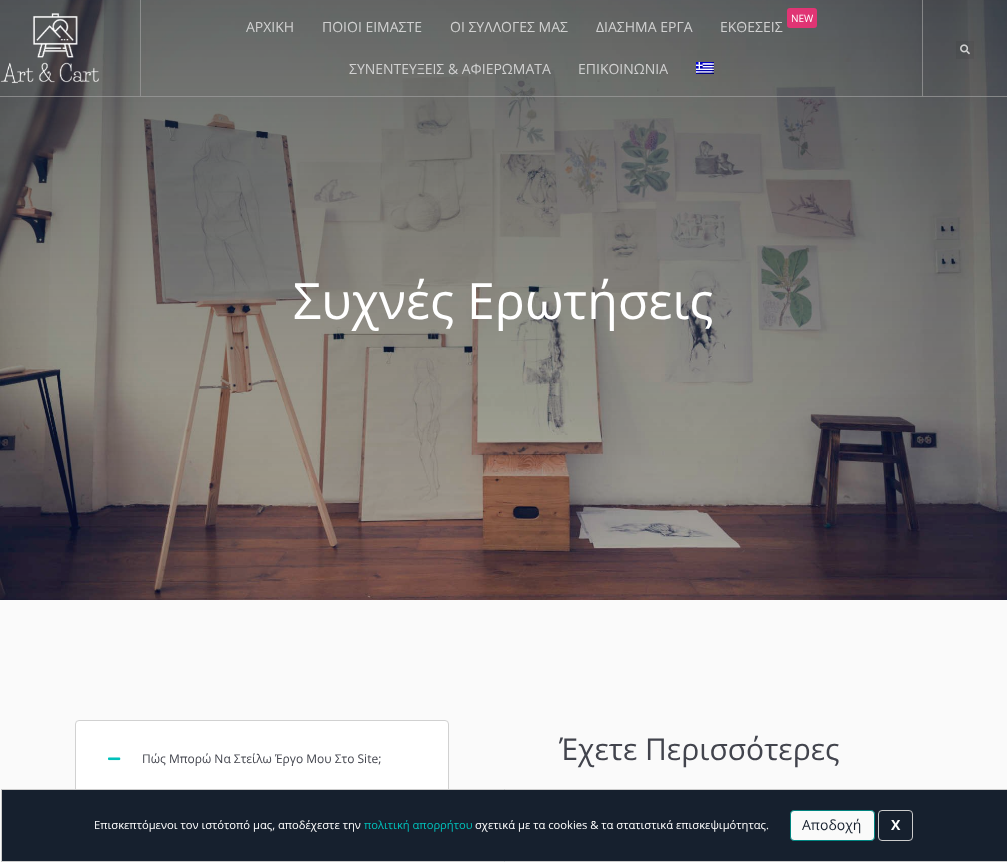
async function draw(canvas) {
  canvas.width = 1007;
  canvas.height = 862;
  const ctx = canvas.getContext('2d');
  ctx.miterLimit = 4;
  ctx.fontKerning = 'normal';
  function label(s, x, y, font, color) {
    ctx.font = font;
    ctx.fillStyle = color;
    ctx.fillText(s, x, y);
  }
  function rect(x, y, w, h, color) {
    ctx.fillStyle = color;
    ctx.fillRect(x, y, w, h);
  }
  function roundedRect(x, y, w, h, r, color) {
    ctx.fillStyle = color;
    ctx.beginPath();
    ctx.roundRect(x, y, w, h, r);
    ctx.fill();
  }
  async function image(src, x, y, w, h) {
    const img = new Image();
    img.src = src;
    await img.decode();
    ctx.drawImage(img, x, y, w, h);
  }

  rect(0, 0, 1007, 862, '#fafafa');
  await image('assets/img4.png', 0, 0, 1007, 600);
  rect(0, 96, 1007, 1, '#9e9e9eb5');
  await image('assets/img1.png', 0, 13, 99, 71);
  rect(922, 0, 1, 96, '#9e9e9eb3');
  rect(140, 0, 1, 96, '#9e9e9eb3');
  label('ΑΡΧΙΚΗ', 246, 32, '14px Open Sans', '#d1d1d1');
  label('ΠΟΙΟΙ ΕΙΜΑΣΤΕ', 322, 32, '14px Open Sans', '#d1d1d1');
  label('ΟΙ ΣΥΛΛΟΓΕΣ ΜΑΣ', 450, 32, '14px Open Sans', '#d1d1d1');
  label('ΔΙΑΣΗΜΑ ΕΡΓΑ', 596, 32, '14px Open Sans', '#d1d1d1');
  roundedRect(787, 8, 30, 20, 3, '#e03574');
  label('NEW', 791, 22, '10px Open Sans', '#fff');
  label('ΕΚΘΕΣΕΙΣ', 720, 32, '14px Open Sans', '#d1d1d1');
  label('ΣΥΝΕΝΤΕΥΞΕΙΣ & ΑΦΙΕΡΩΜΑΤΑ', 349, 74, '14px Open Sans', '#d1d1d1');
  label('ΕΠΙΚΟΙΝΩΝΙΑ', 578, 74, '14px Open Sans', '#d1d1d1');
  await image('assets/img2.png', 696, 62, 18, 12);
  rect(956, 41, 18, 18, '#0000000d');
  await image('assets/img3.png', 960, 44, 10, 11);
  label('Συχνές Ερωτήσεις', 293, 319, '50px Open Sans', '#fff');
  ctx.beginPath();
  ctx.roundRect(75.5, 720.5, 373, 78, 3.5);
  ctx.fill();
  ctx.strokeStyle = '#d1d1d1';
  ctx.stroke();
  await image('assets/img5.png', 108, 757, 13, 4);
  label('Πώς Μπορώ Να Στείλω Έργο Μου Στο Site;', 142, 763, '12px Open Sans', '#42444d');
  label('Έχετε Περισσότερες', 559, 760, '30px Open Sans', '#42444d');
  ctx.fillStyle = '#16202e';
  ctx.beginPath();
  ctx.rect(1.5, 789.5, 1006, 72);
  ctx.fill();
  ctx.strokeStyle = '#ccc';
  ctx.stroke();
  label('Επισκεπτόμενοι τον ιστότοπό μας, αποδέχεστε την', 94, 829, '11.2px Open Sans', '#fff');
  label('πολιτική απορρήτου', 364, 829, '11.2px Open Sans', '#00c1bb');
  label('σχετικά με τα cookies & τα στατιστικά επισκεψιμότητας.', 475, 829, '11.2px Open Sans', '#fff');
  ctx.fillStyle = '#fafafa';
  ctx.beginPath();
  ctx.roundRect(790.5, 810.5, 84, 30, 3.5);
  ctx.fill();
  ctx.strokeStyle = '#008480';
  ctx.stroke();
  label('Αποδοχή', 802, 830, '14px Open Sans', '#16202e');
  ctx.beginPath();
  ctx.roundRect(878.5, 810.5, 34, 30, 3.5);
  ctx.strokeStyle = '#ccc';
  ctx.stroke();
  label('X', 891, 830, 'bold 14px Open Sans', '#fff');
}

draw(document.querySelector('canvas'));
